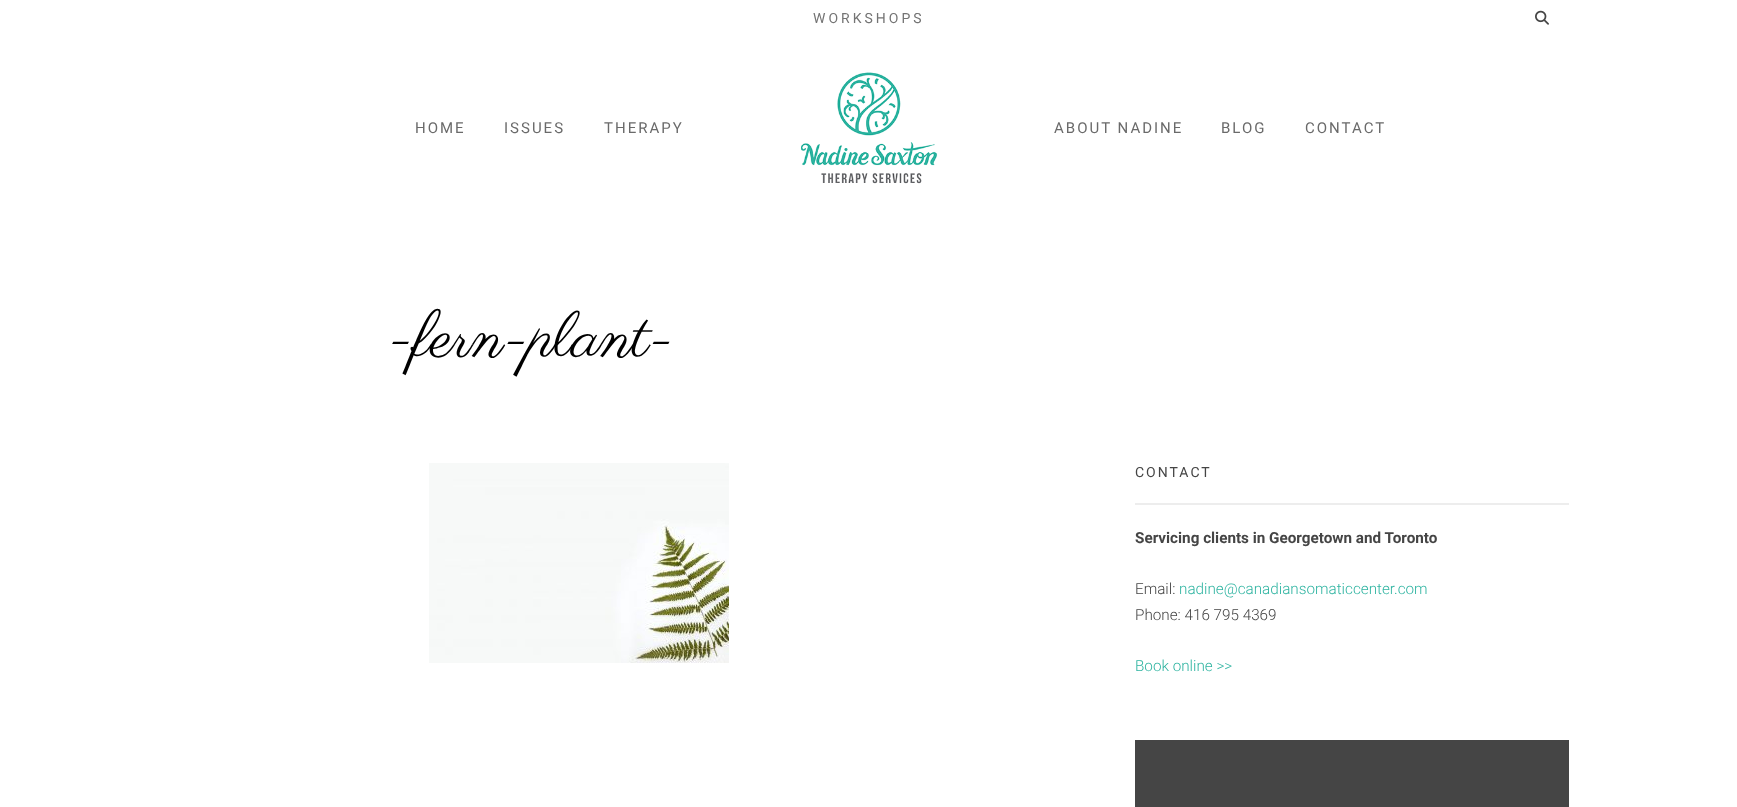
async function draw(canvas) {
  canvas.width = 1737;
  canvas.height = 807;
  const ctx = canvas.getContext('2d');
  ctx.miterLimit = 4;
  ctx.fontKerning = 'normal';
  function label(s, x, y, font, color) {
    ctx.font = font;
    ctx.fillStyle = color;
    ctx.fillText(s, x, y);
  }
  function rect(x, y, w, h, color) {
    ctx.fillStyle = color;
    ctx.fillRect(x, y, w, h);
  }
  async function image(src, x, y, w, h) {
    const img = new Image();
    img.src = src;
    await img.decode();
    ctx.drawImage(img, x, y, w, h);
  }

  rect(0, 0, 1737, 807, '#fff');
  ctx.letterSpacing = '3px';
  label('WORKSHOPS', 813, 23, '14px Roboto', '#747474');
  await image('assets/img1.png', 1535, 10, 14, 15);
  ctx.letterSpacing = '2px';
  label('HOME', 415, 133, '15px Roboto', '#6a6a6a');
  label('ISSUES', 504, 133, '15px Roboto', '#6a6a6a');
  label('THERAPY', 604, 133, '15px Roboto', '#6a6a6a');
  await image('assets/img2.png', 801, 72, 137, 112);
  label('ABOUT NADINE', 1054, 133, '15px Roboto', '#6a6a6a');
  label('BLOG', 1221, 133, '15px Roboto', '#6a6a6a');
  label('CONTACT', 1305, 133, '15px Roboto', '#6a6a6a');
  ctx.letterSpacing = '0px';
  label('-fern-plant-', 389, 356, '64px Parisienne', '#000');
  await image('assets/img3.png', 429, 463, 300, 200);
  ctx.letterSpacing = '2px';
  label('CONTACT', 1135, 477, '14px Roboto', '#454545');
  rect(1135, 503, 434, 2, '#ededed');
  ctx.letterSpacing = '0px';
  label('Servicing clients in Georgetown and Toronto', 1135, 543, 'bold 15.25px Roboto', '#454545');
  label('Email:', 1135, 594, '300 15.25px Roboto', '#454545');
  label('nadine@canadiansomaticcenter.com', 1179, 594, '300 15.25px Roboto', '#2fb4a1');
  label('Phone: 416 795 4369', 1135, 620, '300 15.25px Roboto', '#454545');
  label('Book online >>', 1135, 671, '300 15.25px Roboto', '#2fb4a1');
  rect(1135, 740, 434, 67, '#454545');
}

draw(document.querySelector('canvas'));
